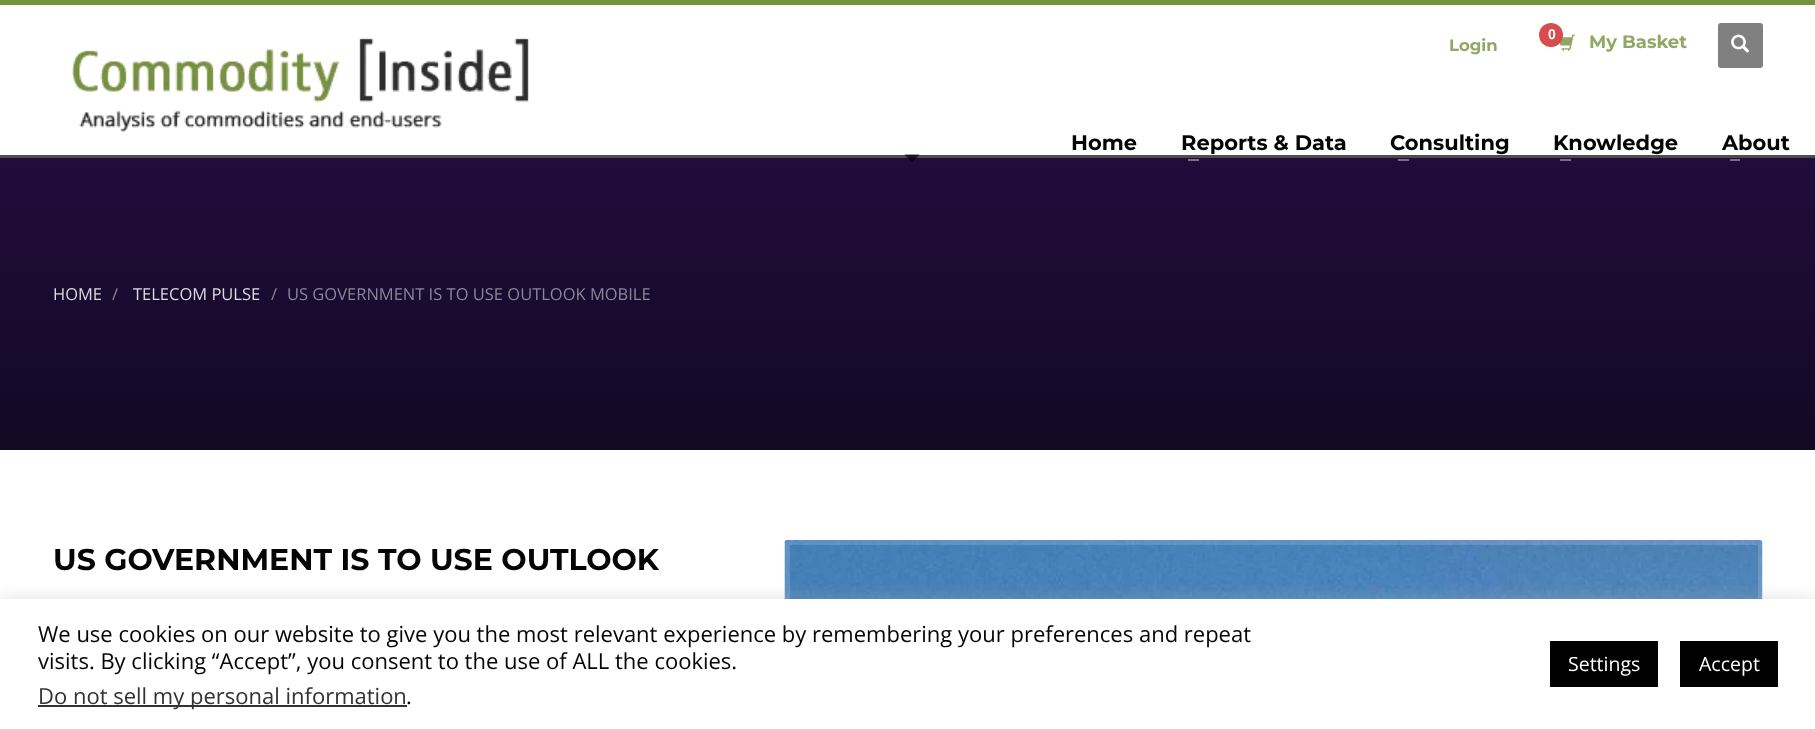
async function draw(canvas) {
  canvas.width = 1815;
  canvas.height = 729;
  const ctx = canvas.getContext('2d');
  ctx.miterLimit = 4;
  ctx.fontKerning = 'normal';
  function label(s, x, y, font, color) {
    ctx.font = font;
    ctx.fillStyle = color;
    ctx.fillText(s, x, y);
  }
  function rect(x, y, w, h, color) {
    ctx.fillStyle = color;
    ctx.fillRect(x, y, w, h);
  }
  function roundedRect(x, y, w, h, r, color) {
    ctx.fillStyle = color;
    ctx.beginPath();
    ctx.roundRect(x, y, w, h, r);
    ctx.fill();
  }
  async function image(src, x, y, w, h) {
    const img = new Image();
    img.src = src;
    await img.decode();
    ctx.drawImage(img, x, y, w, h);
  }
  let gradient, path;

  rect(0, 0, 1815, 729, '#fff');
  rect(0, 0, 1815, 5, '#76923c');
  rect(0, 155, 1815, 3, '#4d4d4d');
  await image('assets/img1.png', 71, 38, 458, 95);
  label('Login', 1449, 51, 'bold 16.5px Montserrat', '#91a863');
  await image('assets/img2.png', 1559, 34, 16, 17);
  ctx.fillStyle = '#d74d4e';
  ctx.beginPath();
  ctx.arc(1551, 35, 12, 0, 2 * Math.PI);
  ctx.fill();
  label('0', 1548, 39, 'bold 14px Liberation Sans', '#fff');
  label('My Basket', 1589, 48, 'bold 18px Montserrat', '#91a863');
  roundedRect(1718, 23, 45, 45, 3, '#808080');
  await image('assets/img3.png', 1731, 34, 19, 19);
  label('Home', 1071, 150, 'bold 21px Montserrat', '#050505');
  label('Reports & Data', 1181, 150, 'bold 21px Montserrat', '#050505');
  gradient = ctx.createLinearGradient(908, 0, 908, 450);
  gradient.addColorStop(0, '#280f48');
  gradient.addColorStop(1, '#140824');
  ctx.fillStyle = gradient;
  ctx.fillRect(0, 158, 1815, 292);
  rect(1188, 159, 11, 2, '#7a6e89');
  label('Consulting', 1390, 150, 'bold 21px Montserrat', '#050505');
  rect(1398, 159, 11, 2, '#7a6e89');
  label('Knowledge', 1553, 150, 'bold 21px Montserrat', '#050505');
  rect(1560, 159, 11, 2, '#7a6e89');
  label('About', 1722, 150, 'bold 21px Montserrat', '#050505');
  rect(1730, 159, 10, 2, '#7a6e89');
  ctx.fillStyle = '#000000b3';
  path = new Path2D('M904.5 154.5H919.5L912 162Z');
  ctx.fill(path);
  label('HOME', 53, 300, '16.5px Open Sans', '#dddae0');
  label('/', 112, 300, '16.5px Open Sans', '#8d8598');
  label('TELECOM PULSE', 133, 300, '16.5px Open Sans', '#dddae0');
  label('/', 271, 300, '16.5px Open Sans', '#8d8598');
  label('US GOVERNMENT IS TO USE OUTLOOK MOBILE', 287, 300, '16.5px Open Sans', '#8d8598');
  label('US GOVERNMENT IS TO USE OUTLOOK', 53, 570, 'bold 30px Montserrat', '#050505');
  await image('assets/img4.png', 784, 540, 979, 59);
  ctx.beginPath();
  ctx.roundRect(787.5, 542.5, 973, 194, 2.5);
  ctx.strokeStyle = '#ffffff26';
  ctx.lineWidth = 5;
  ctx.stroke();
  ctx.fillStyle = '#acabab4d';
  ctx.filter = 'blur(7.5px)';
  ctx.beginPath();
  ctx.rect(0, 597, 1815, 131);
  ctx.fill();
  ctx.filter = 'none';
  rect(0, 599, 1815, 130, '#fff');
  label('We use cookies on our website to give you the most relevant experience by remembering your preferences and repeat', 38, 642, '22px Open Sans', '#050505');
  label('visits. By clicking “Accept”, you consent to the use of ALL the cookies.', 38, 669, '22px Open Sans', '#050505');
  rect(38, 705, 369, 2, '#333');
  label('Do not sell my personal information', 38, 704, '22px Open Sans', '#333');
  label('.', 406, 704, '22px Open Sans', '#050505');
  rect(1550, 641, 108, 46, '#000');
  label('Settings', 1568, 671, '19.5px Open Sans', '#fff');
  rect(1680, 641, 98, 46, '#000');
  label('Accept', 1699, 671, '19.5px Open Sans', '#fff');
}

draw(document.querySelector('canvas'));
